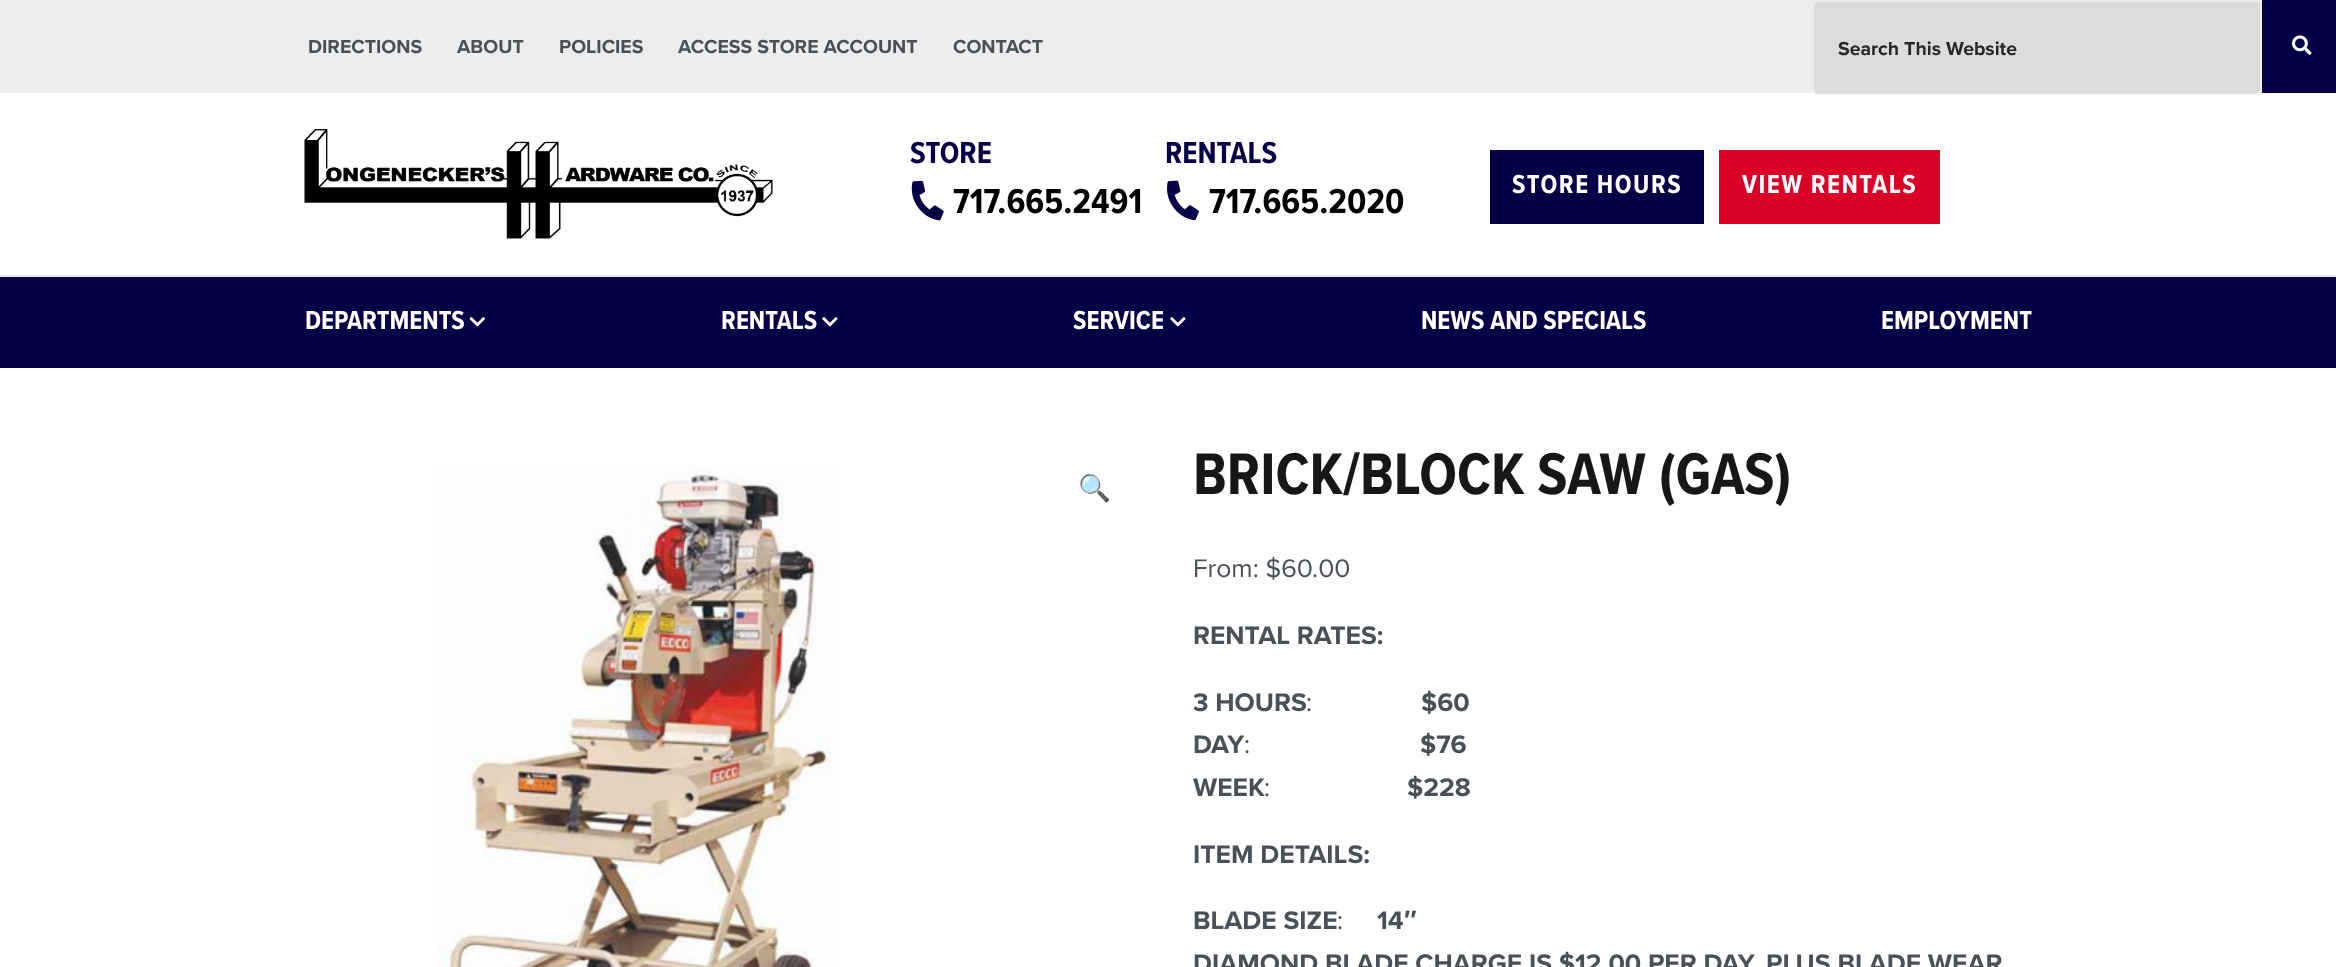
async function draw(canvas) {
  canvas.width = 2336;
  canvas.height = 967;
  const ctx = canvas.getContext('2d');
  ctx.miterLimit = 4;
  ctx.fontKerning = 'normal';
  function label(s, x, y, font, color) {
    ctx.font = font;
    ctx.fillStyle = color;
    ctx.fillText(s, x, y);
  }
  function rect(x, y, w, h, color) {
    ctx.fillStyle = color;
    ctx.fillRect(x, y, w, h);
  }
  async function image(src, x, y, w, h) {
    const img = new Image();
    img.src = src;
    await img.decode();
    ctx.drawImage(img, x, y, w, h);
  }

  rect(0, 0, 2336, 967, '#fff');
  rect(0, 0, 2262, 93, '#ededed');
  label('DIRECTIONS', 308, 53, 'bold 19.5px Proxima Nova', '#495057');
  label('ABOUT', 457, 53, 'bold 19.5px Proxima Nova', '#495057');
  label('POLICIES', 559, 53, 'bold 19.5px Proxima Nova', '#495057');
  label('ACCESS STORE ACCOUNT', 678, 53, 'bold 19.5px Proxima Nova', '#495057');
  label('CONTACT', 953, 53, 'bold 19.5px Proxima Nova', '#495057');
  ctx.fillStyle = '#dcdcdc';
  ctx.beginPath();
  ctx.roundRect(1813, 1, 448, 93, 5);
  ctx.fill();
  ctx.strokeStyle = '#e9ecef';
  ctx.lineWidth = 2;
  ctx.stroke();
  label('Search This Website', 1838, 55, 'bold 19.5px Proxima Nova', '#272727');
  rect(2262, 0, 74, 93, '#070046');
  await image('assets/img1.png', 2292, 35, 20, 20);
  await image('assets/img2.png', 304, 129, 469, 110);
  label('STORE', 910, 163, 'bold 31.5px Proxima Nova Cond', '#070046');
  await image('assets/img3.png', 911, 180, 33, 41);
  label('717.665.2491', 953, 213, 'bold 36px Proxima Nova Cond', '#000');
  label('RENTALS', 1165, 163, 'bold 31.5px Proxima Nova Cond', '#070046');
  await image('assets/img4.png', 1167, 180, 32, 41);
  label('717.665.2020', 1209, 213, 'bold 36px Proxima Nova Cond', '#000');
  rect(1490, 150, 214, 74, '#070046');
  ctx.letterSpacing = '1.5px';
  label('STORE HOURS', 1512, 193, 'bold 27px Proxima Nova Cond', '#fff');
  rect(1719, 150, 221, 74, '#db0025');
  label('VIEW RENTALS', 1742, 193, 'bold 27px Proxima Nova Cond', '#fff');
  rect(0, 277, 2336, 91, '#070046');
  rect(0, 275, 2336, 2, '#e9ecef');
  ctx.letterSpacing = '0px';
  label('DEPARTMENTS', 305, 329, 'bold 27px Proxima Nova Cond', '#fff');
  await image('assets/img5.png', 469, 317, 16, 10);
  label('RENTALS', 721, 329, 'bold 27px Proxima Nova Cond', '#fff');
  await image('assets/img6.png', 822, 317, 16, 10);
  label('SERVICE', 1073, 329, 'bold 27px Proxima Nova Cond', '#fff');
  await image('assets/img6.png', 1170, 317, 16, 10);
  label('NEWS AND SPECIALS', 1421, 329, 'bold 27px Proxima Nova Cond', '#fff');
  label('EMPLOYMENT', 1881, 329, 'bold 27px Proxima Nova Cond', '#fff');
  await image('assets/img7.png', 438, 465, 395, 502);
  label('🔍', 1078, 497, '26.4px Noto Color Emoji', '#070046');
  label('BRICK/BLOCK SAW (GAS)', 1193, 494, 'bold 60.75px Proxima Nova Cond', '#171717');
  label('From: $60.00', 1193, 577, '26.4px Proxima Nova', '#495057');
  label('RENTAL RATES:', 1193, 644, 'bold 26.4px Proxima Nova', '#495057');
  label('3 HOURS', 1193, 711, 'bold 26.4px Proxima Nova', '#495057');
  label(':', 1306, 711, '26.4px Proxima Nova', '#495057');
  label('$60', 1421, 711, 'bold 26.4px Proxima Nova', '#495057');
  label('DAY', 1193, 753, 'bold 26.4px Proxima Nova', '#495057');
  label(':', 1244, 753, '26.4px Proxima Nova', '#495057');
  label('$76', 1420, 753, 'bold 26.4px Proxima Nova', '#495057');
  label('WEEK', 1193, 796, 'bold 26.4px Proxima Nova', '#495057');
  label(':', 1264, 796, '26.4px Proxima Nova', '#495057');
  label('$228', 1407, 796, 'bold 26.4px Proxima Nova', '#495057');
  label('ITEM DETAILS:', 1193, 863, 'bold 26.4px Proxima Nova', '#495057');
  label('BLADE SIZE', 1193, 929, 'bold 26.4px Proxima Nova', '#495057');
  label(':', 1337, 929, '26.4px Proxima Nova', '#495057');
  label('14', 1377, 929, 'bold 26.4px Proxima Nova', '#495057');
  label('″', 1404, 929, 'bold 26.4px Liberation Sans', '#495057');
  label('DIAMOND BLADE CHARGE IS $12.00 PER DAY, PLUS BLADE WEAR', 1193, 972, 'bold 26.4px Proxima Nova', '#495057');
}

draw(document.querySelector('canvas'));
